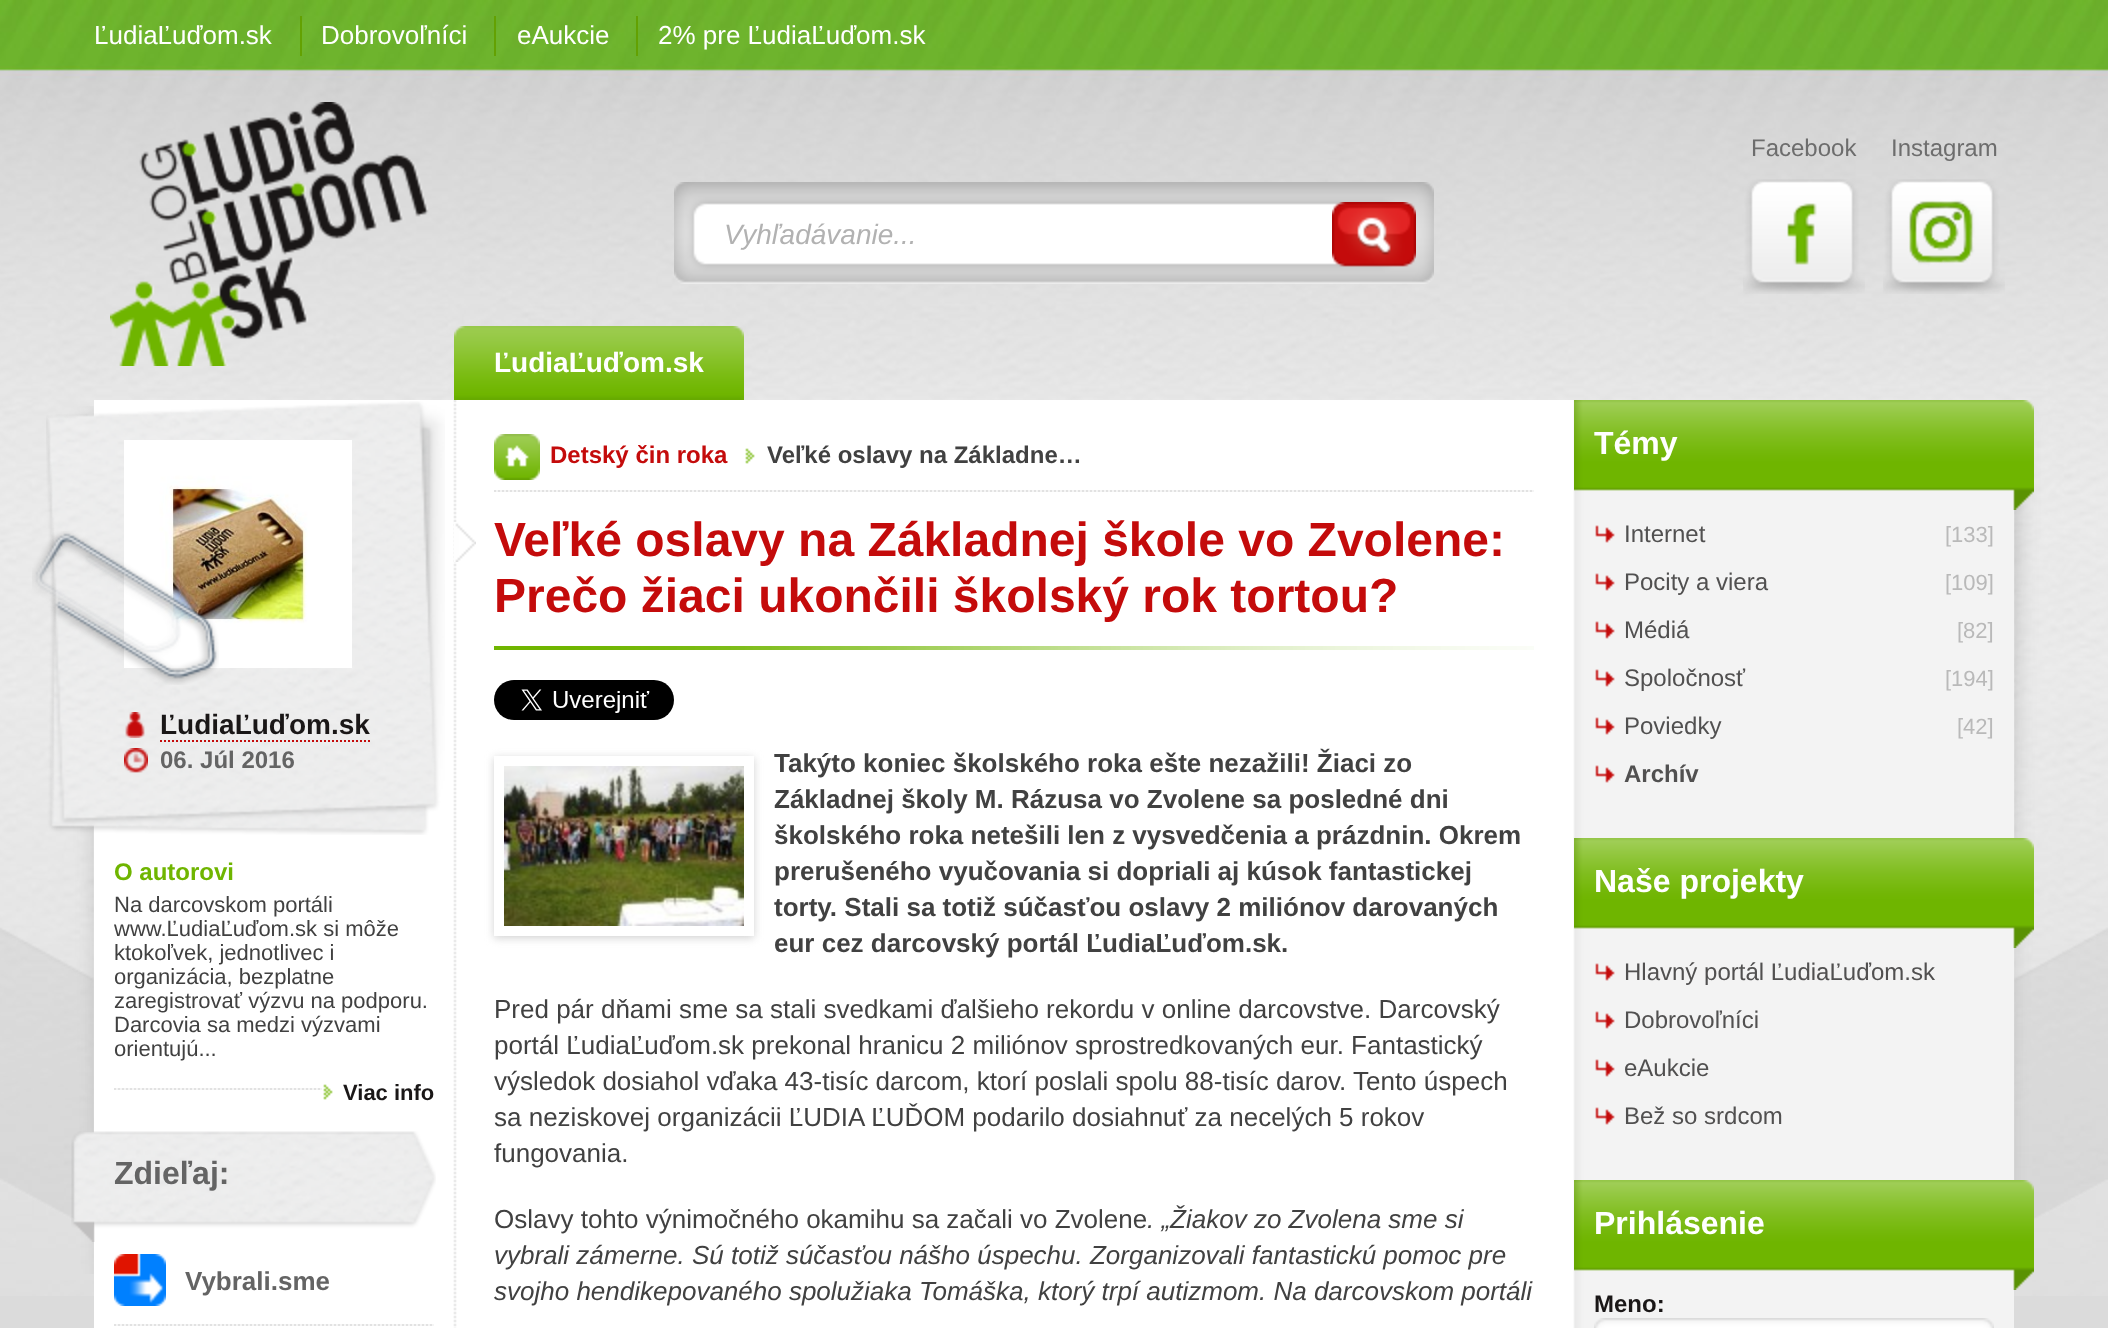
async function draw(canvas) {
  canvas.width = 2108;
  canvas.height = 1328;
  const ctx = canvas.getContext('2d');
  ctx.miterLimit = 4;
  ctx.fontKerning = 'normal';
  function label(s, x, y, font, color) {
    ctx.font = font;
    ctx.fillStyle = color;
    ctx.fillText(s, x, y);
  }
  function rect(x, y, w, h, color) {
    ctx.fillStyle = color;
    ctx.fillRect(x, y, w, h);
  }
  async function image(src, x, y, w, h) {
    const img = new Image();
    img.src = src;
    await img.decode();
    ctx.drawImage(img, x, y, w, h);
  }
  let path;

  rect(0, 0, 2108, 1328, '#dbdbdb');
  await image('assets/img1.png', 0, 0, 2108, 1296);
  await image('assets/img2.png', 0, 406, 2108, 868);
  label('ĽudiaĽuďom.sk', 94, 44, '26px Liberation Sans', '#fff');
  rect(300, 16, 2, 40, '#63a102');
  label('Dobrovoľníci', 321, 44, '26px Liberation Sans', '#fff');
  rect(494, 16, 2, 40, '#63a102');
  label('eAukcie', 517, 44, '26px Liberation Sans', '#fff');
  rect(636, 16, 2, 40, '#63a102');
  label('2% pre ĽudiaĽuďom.sk', 658, 44, '26px Liberation Sans', '#fff');
  await image('assets/img3.png', 110, 102, 319, 264);
  label('Facebook', 1751, 156, '24px Liberation Sans', '#6d6d6d');
  await image('assets/img4.png', 1743, 179, 122, 115);
  label('Instagram', 1891, 156, '24px Liberation Sans', '#6d6d6d');
  await image('assets/img5.png', 1883, 179, 122, 115);
  await image('assets/img6.png', 674, 182, 760, 102);
  label('Vyhľadávanie...', 724, 244, 'italic 28px Liberation Sans', '#b2b2b2');
  await image('assets/img7.png', 1332, 202, 84, 65);
  await image('assets/img8.png', 454, 326, 187, 74);
  await image('assets/img9.png', 641, 326, 103, 74);
  label('ĽudiaĽuďom.sk', 494, 372, 'bold 28px Liberation Sans', '#fff');
  rect(94, 400, 359, 928, '#fff');
  await image('assets/img10.png', 453, 400, 1561, 928);
  await image('assets/img11.png', 46, 401, 399, 434);
  await image('assets/img12.png', 124, 440, 228, 228);
  await image('assets/img13.png', 32, 531, 187, 154);
  await image('assets/img14.png', 125, 712, 20, 26);
  label('ĽudiaĽuďom.sk', 160, 734, 'bold 28px Liberation Sans', '#1a1717');
  path = new Path2D('M160 741H370');
  ctx.strokeStyle = '#c40b0b';
  ctx.lineWidth = 2;
  ctx.setLineDash([2, 2]);
  ctx.stroke(path);
  await image('assets/img15.png', 124, 748, 24, 25);
  label('06. Júl 2016', 160, 768, 'bold 24px Liberation Sans', '#646464');
  await image('assets/img16.png', 114, 1088, 208, 2);
  label('O autorovi', 114, 880, 'bold 24px Liberation Sans', '#6fb500');
  label('Na darcovskom portáli', 114, 912, '22px Liberation Sans', '#414141');
  label('www.ĽudiaĽuďom.sk si môže', 114, 936, '22px Liberation Sans', '#414141');
  label('ktokoľvek, jednotlivec i', 114, 960, '22px Liberation Sans', '#414141');
  label('organizácia, bezplatne', 114, 984, '22px Liberation Sans', '#414141');
  label('zaregistrovať výzvu na podporu.', 114, 1008, '22px Liberation Sans', '#414141');
  label('Darcovia sa medzi výzvami', 114, 1032, '22px Liberation Sans', '#414141');
  label('orientujú...', 114, 1056, '22px Liberation Sans', '#414141');
  await image('assets/img17.png', 323, 1084, 10, 16);
  label('Viac info', 343, 1100, 'bold 22px Liberation Sans', '#1a1717');
  await image('assets/img18.png', 71, 1131, 365, 111);
  label('Zdieľaj:', 114, 1184, 'bold 32px Liberation Sans', '#646464');
  await image('assets/img19.png', 114, 1324, 320, 2);
  await image('assets/img20.png', 114, 1254, 52, 52);
  label('Vybrali.sme', 185, 1290, 'bold 26px Liberation Sans', '#646464');
  await image('assets/img21.png', 494, 490, 1040, 2);
  await image('assets/img22.png', 494, 434, 46, 46);
  await image('assets/img17.png', 745, 448, 10, 16);
  label('Detský čin roka', 550, 463, 'bold 24px Liberation Sans', '#c40b0b');
  label('Veľké oslavy na Základne…', 767, 463, 'bold 24px Liberation Sans', '#414141');
  await image('assets/img23.png', 454, 522, 22, 40);
  await image('assets/img24.png', 494, 646, 1040, 4);
  label('Veľké oslavy na Základnej škole vo Zvolene:', 494, 556, 'bold 48px Liberation Sans', '#c40b0b');
  label('Prečo žiaci ukončili školský rok tortou?', 494, 612, 'bold 48px Liberation Sans', '#c40b0b');
  await image('assets/img25.png', 494, 680, 180, 40);
  ctx.save();
  path = new Path2D('M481 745H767V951H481ZM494 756H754V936H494Z');
  ctx.clip(path, 'evenodd');
  ctx.fillStyle = '#d1d1d1';
  ctx.filter = 'blur(4px)';
  ctx.beginPath();
  ctx.rect(494, 758, 260, 180);
  ctx.fill();
  ctx.filter = 'none';
  ctx.restore();
  await image('assets/img26.png', 504, 766, 240, 160);
  label('Takýto koniec školského roka ešte nezažili! Žiaci zo', 774, 772, 'bold 26px Liberation Sans', '#414141');
  label('Základnej školy M. Rázusa vo Zvolene sa posledné dni', 774, 808, 'bold 26px Liberation Sans', '#414141');
  label('školského roka netešili len z vysvedčenia a prázdnin. Okrem', 774, 844, 'bold 26px Liberation Sans', '#414141');
  label('prerušeného vyučovania si dopriali aj kúsok fantastickej', 774, 880, 'bold 26px Liberation Sans', '#414141');
  label('torty. Stali sa totiž súčasťou oslavy 2 miliónov darovaných', 774, 916, 'bold 26px Liberation Sans', '#414141');
  label('eur cez darcovský portál ĽudiaĽuďom.sk.', 774, 952, 'bold 26px Liberation Sans', '#414141');
  label('Pred pár dňami sme sa stali svedkami ďalšieho rekordu v online darcovstve. Darcovský', 494, 1018, '26px Liberation Sans', '#414141');
  label('portál ĽudiaĽuďom.sk prekonal hranicu 2 miliónov sprostredkovaných eur. Fantastický', 494, 1054, '26px Liberation Sans', '#414141');
  label('výsledok dosiahol vďaka 43-tisíc darcom, ktorí poslali spolu 88-tisíc darov. Tento úspech', 494, 1090, '26px Liberation Sans', '#414141');
  label('sa neziskovej organizácii ĽUDIA ĽUĎOM podarilo dosiahnuť za necelých 5 rokov', 494, 1126, '26px Liberation Sans', '#414141');
  label('fungovania.', 494, 1162, '26px Liberation Sans', '#414141');
  label('Oslavy tohto výnimočného okamihu sa začali vo Zvolene', 494, 1228, '26px Liberation Sans', '#414141');
  label('. „Žiakov zo Zvolena sme si', 1147, 1228, 'italic 26px Liberation Sans', '#414141');
  label('vybrali zámerne. Sú totiž súčasťou nášho úspechu. Zorganizovali fantastickú pomoc pre', 494, 1264, 'italic 26px Liberation Sans', '#414141');
  label('svojho hendikepovaného spolužiaka Tomáška, ktorý trpí autizmom. Na darcovskom portáli', 494, 1300, 'italic 26px Liberation Sans', '#414141');
  await image('assets/img27.png', 1574, 400, 460, 110);
  label('Témy', 1594, 454, 'bold 32px Liberation Sans', '#fff');
  await image('assets/img28.png', 1595, 525, 20, 18);
  label('Internet', 1624, 542, '24px Liberation Sans', '#515050');
  label('[133]', 1945, 542, '22px Liberation Sans', '#b9b9b9');
  await image('assets/img28.png', 1595, 573, 20, 18);
  label('Pocity a viera', 1624, 590, '24px Liberation Sans', '#515050');
  label('[109]', 1945, 590, '22px Liberation Sans', '#b9b9b9');
  await image('assets/img28.png', 1595, 621, 20, 18);
  label('Médiá', 1624, 638, '24px Liberation Sans', '#515050');
  label('[82]', 1957, 638, '22px Liberation Sans', '#b9b9b9');
  await image('assets/img28.png', 1595, 669, 20, 18);
  label('Spoločnosť', 1624, 686, '24px Liberation Sans', '#515050');
  label('[194]', 1945, 686, '22px Liberation Sans', '#b9b9b9');
  await image('assets/img28.png', 1595, 717, 20, 18);
  label('Poviedky', 1624, 734, '24px Liberation Sans', '#515050');
  label('[42]', 1957, 734, '22px Liberation Sans', '#b9b9b9');
  await image('assets/img28.png', 1595, 765, 20, 18);
  label('Archív', 1624, 782, 'bold 24px Liberation Sans', '#515050');
  await image('assets/img29.png', 1574, 838, 460, 110);
  label('Naše projekty', 1594, 892, 'bold 32px Liberation Sans', '#fff');
  await image('assets/img28.png', 1595, 963, 20, 18);
  label('Hlavný portál ĽudiaĽuďom.sk', 1624, 980, '24px Liberation Sans', '#515050');
  await image('assets/img28.png', 1595, 1011, 20, 18);
  label('Dobrovoľníci', 1624, 1028, '24px Liberation Sans', '#515050');
  await image('assets/img28.png', 1595, 1059, 20, 18);
  label('eAukcie', 1624, 1076, '24px Liberation Sans', '#515050');
  await image('assets/img28.png', 1595, 1107, 20, 18);
  label('Bež so srdcom', 1624, 1124, '24px Liberation Sans', '#515050');
  await image('assets/img30.png', 1574, 1180, 460, 110);
  label('Prihlásenie', 1594, 1234, 'bold 32px Liberation Sans', '#fff');
  label('Meno:', 1594, 1312, 'bold 24px Liberation Sans', '#1a1717');
  await image('assets/img31.png', 1594, 1318, 400, 10);
}

draw(document.querySelector('canvas'));
